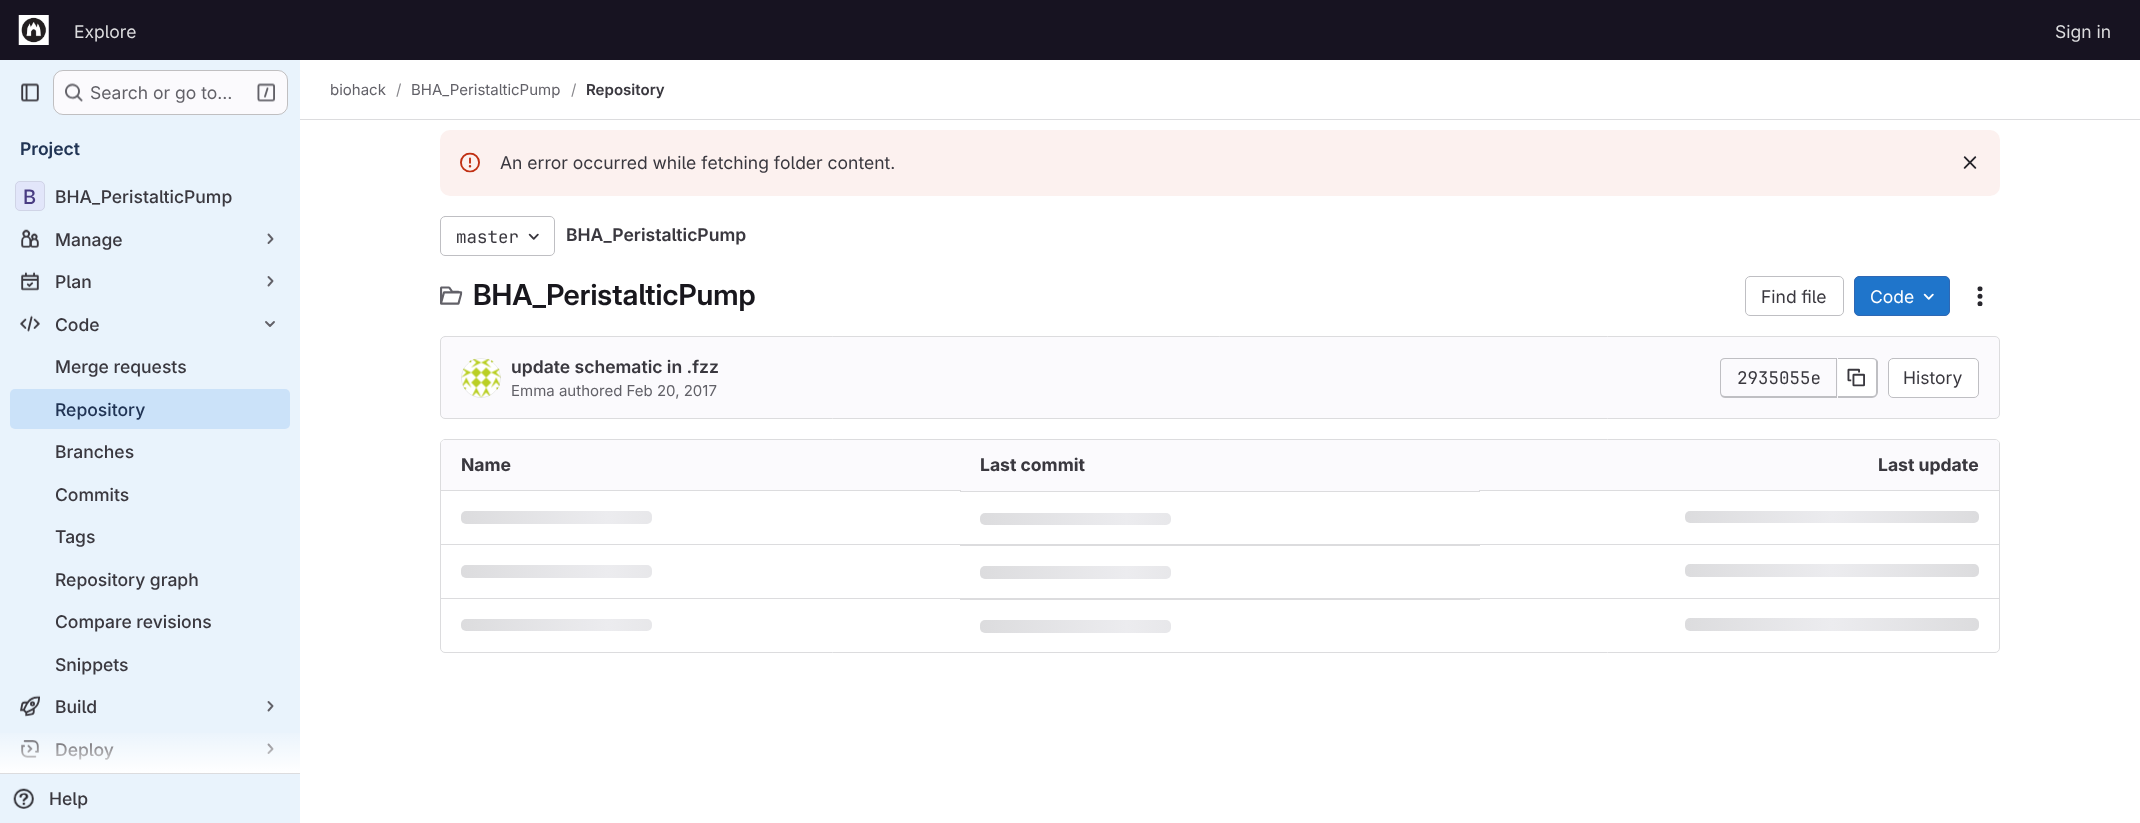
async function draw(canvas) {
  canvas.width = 2140;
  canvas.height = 823;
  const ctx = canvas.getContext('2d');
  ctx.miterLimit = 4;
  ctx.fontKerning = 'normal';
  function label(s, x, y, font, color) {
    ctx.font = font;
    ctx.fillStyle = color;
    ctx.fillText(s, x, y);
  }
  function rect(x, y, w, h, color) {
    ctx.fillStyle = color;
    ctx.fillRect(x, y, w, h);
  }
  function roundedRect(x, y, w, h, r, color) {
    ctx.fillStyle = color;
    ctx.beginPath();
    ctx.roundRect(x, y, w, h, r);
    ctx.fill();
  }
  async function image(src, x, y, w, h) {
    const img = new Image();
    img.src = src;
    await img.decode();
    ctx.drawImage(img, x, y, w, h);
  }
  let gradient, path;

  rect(0, 0, 2140, 823, '#fff');
  rect(0, 0, 2140, 60, '#171321');
  await image('assets/img1.png', 18, 15, 31, 30);
  label('Explore', 74, 38, '17.5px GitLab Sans', '#dcdcde');
  label('Sign in', 2055, 38, '17.5px GitLab Sans', '#dcdcde');
  rect(0, 60, 300, 763, '#e9f3fc');
  await image('assets/img2.png', 21, 83, 18, 19);
  roundedRect(53, 70, 235, 45, 10, '#fbfafd');
  ctx.beginPath();
  ctx.roundRect(53.5, 70.5, 234, 44, 9.5);
  ctx.strokeStyle = '#0505063d';
  ctx.stroke();
  await image('assets/img3.png', 65, 83, 18, 19);
  label('Search or go to…', 90, 99, '17.5px GitLab Sans', '#626168');
  await image('assets/img4.png', 257, 83, 18, 19);
  label('Project', 20, 155, '600 17.5px "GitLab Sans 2"', '#213454');
  rect(0, 773, 300, 1, '#dcdcde');
  roundedRect(15, 181, 30, 30, 5, '#e2e6fa');
  ctx.beginPath();
  ctx.roundRect(15.5, 181.5, 29, 29, 4.5);
  ctx.strokeStyle = '#05050614';
  ctx.stroke();
  label('B', 23, 204, '500 20px "GitLab Sans 2"', '#493c83');
  label('BHA_PeristalticPump', 55, 203, '500 17.5px GitLab Sans', '#3a383f');
  await image('assets/img5.png', 21, 229, 18, 19);
  label('Manage', 55, 246, '500 17.5px GitLab Sans', '#3a383f');
  path = new Path2D('M268.5 234.5L272.5 239L268.5 243');
  ctx.strokeStyle = '#626168';
  ctx.lineWidth = 1.9;
  ctx.lineCap = 'round';
  ctx.lineJoin = 'round';
  ctx.stroke(path);
  await image('assets/img6.png', 21, 271, 18, 20);
  label('Plan', 55, 288, '500 17.5px GitLab Sans', '#3a383f');
  path = new Path2D('M268.5 277L272.5 281L268.5 285.5');
  ctx.stroke(path);
  await image('assets/img7.png', 20, 315, 20, 17);
  label('Code', 55, 331, '500 17.5px GitLab Sans', '#3a383f');
  path = new Path2D('M274 322L270 326L266 322');
  ctx.stroke(path);
  label('Merge requests', 55, 373, '500 17.5px GitLab Sans', '#3a383f');
  roundedRect(10, 389, 280, 40, 5, '#cbe2f9');
  label('Repository', 55, 416, '500 17.5px GitLab Sans', '#213454');
  label('Branches', 55, 458, '500 17.5px GitLab Sans', '#3a383f');
  label('Commits', 55, 501, '500 17.5px GitLab Sans', '#3a383f');
  label('Tags', 55, 543, '500 17.5px GitLab Sans', '#3a383f');
  label('Repository graph', 55, 586, '500 17.5px GitLab Sans', '#3a383f');
  label('Compare revisions', 55, 628, '500 17.5px GitLab Sans', '#3a383f');
  label('Snippets', 55, 671, '500 17.5px GitLab Sans', '#3a383f');
  await image('assets/img8.png', 20, 695, 20, 22);
  label('Build', 55, 713, '500 17.5px GitLab Sans', '#3a383f');
  path = new Path2D('M268.5 702L272.5 706L268.5 710.5');
  ctx.stroke(path);
  await image('assets/img9.png', 21, 740, 18, 18);
  label('Deploy', 55, 756, '500 17.5px GitLab Sans', '#3a383f');
  path = new Path2D('M268.5 744.5L272.5 749L268.5 753');
  ctx.stroke(path);
  gradient = ctx.createLinearGradient(150, 728, 150, 773);
  gradient.addColorStop(0, '#ffffff00');
  gradient.addColorStop(1, '#fff');
  ctx.fillStyle = gradient;
  ctx.fillRect(0, 733, 300, 40);
  await image('assets/img10.png', 13, 788, 21, 21);
  label('Help', 49, 805, '500 17.5px GitLab Sans', '#3a383f');
  rect(300, 119, 1840, 1, '#dcdcde');
  label('biohack', 330, 95, '15px GitLab Sans', '#626168');
  label('/', 396, 95, '15px GitLab Sans', '#89888d');
  label('BHA_PeristalticPump', 411, 95, '15px GitLab Sans', '#626168');
  label('/', 571, 95, '15px GitLab Sans', '#89888d');
  label('Repository', 586, 95, '600 15px "GitLab Sans 2"', '#3a383f');
  roundedRect(440, 130, 1560, 66, 10, '#fcf1ef');
  await image('assets/img11.png', 460, 152, 20, 21);
  label('An error occurred while fetching folder content.', 500, 169, '17.5px GitLab Sans', '#3a383f');
  await image('assets/img12.png', 1963, 156, 14, 13);
  ctx.beginPath();
  ctx.roundRect(440.5, 216.5, 114, 39, 4.5);
  ctx.strokeStyle = '#bfbfc3';
  ctx.lineWidth = 1;
  ctx.lineJoin = 'miter';
  ctx.stroke();
  label('master', 456, 243, '17.5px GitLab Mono', '#3a383f');
  await image('assets/img13.png', 528, 233, 11, 7);
  label('BHA_PeristalticPump', 566, 241, '600 17.5px "GitLab Sans 2"', '#3a383f');
  await image('assets/img14.png', 440, 286, 23, 19);
  label('BHA_PeristalticPump', 473, 305, '600 28.75px GitLab Sans', '#18171d');
  ctx.beginPath();
  ctx.roundRect(1745.5, 276.5, 98, 39, 4.5);
  ctx.stroke();
  label('Find file', 1761, 303, '17.5px GitLab Sans', '#3a383f');
  ctx.fillStyle = '#1f75cb';
  ctx.beginPath();
  ctx.roundRect(1854.5, 276.5, 95, 39, 4.5);
  ctx.fill();
  ctx.strokeStyle = '#2f68b4';
  ctx.stroke();
  label('Code', 1870, 303, '17.5px GitLab Sans', '#fff');
  await image('assets/img15.png', 1923, 293, 11, 7);
  await image('assets/img16.png', 1977, 286, 6, 21);
  ctx.fillStyle = '#fbfafd';
  ctx.beginPath();
  ctx.roundRect(440.5, 336.5, 1559, 82, 4.5);
  ctx.fill();
  ctx.strokeStyle = '#dcdcde';
  ctx.stroke();
  await image('assets/img17.png', 461, 358, 40, 40);
  ctx.beginPath();
  ctx.arc(481, 378, 19.5, 0, 2 * Math.PI);
  ctx.strokeStyle = '#05050614';
  ctx.stroke();
  label('update schematic in .fzz', 511, 373, '600 17.5px "GitLab Sans 2"', '#3a383f');
  label('Emma authored Feb 20, 2017', 511, 396, '15px GitLab Sans', '#626168');
  ctx.fillStyle = '#bfbfc3';
  path = new Path2D('M1725 358H1836V398H1725C1722 398 1720 395 1720 392V362C1720 360 1722 358 1725 358ZM1725 359H1836V396H1725C1723 396 1721 395 1721 392V362C1721 360 1723 359 1725 359Z');
  ctx.fill(path, 'evenodd');
  label('2935055e', 1737, 384, '17.5px GitLab Mono', '#3a383f');
  ctx.fillStyle = '#fff';
  ctx.beginPath();
  ctx.roundRect(1838, 359, 38, 37, [0, 4, 4, 0]);
  ctx.fill();
  ctx.fillStyle = '#bfbfc3';
  path = new Path2D('M1838 358H1872C1875 358 1878 360 1878 362V392C1878 395 1875 398 1872 398H1838ZM1838 359H1872C1875 359 1876 360 1876 362V392C1876 395 1875 396 1872 396H1838Z');
  ctx.fill(path, 'evenodd');
  rect(1836, 358, 1, 40, '#bfbfc3');
  await image('assets/img18.png', 1847, 368, 18, 19);
  ctx.fillStyle = '#fff';
  ctx.beginPath();
  ctx.roundRect(1888.5, 358.5, 90, 39, 4.5);
  ctx.fill();
  ctx.strokeStyle = '#bfbfc3';
  ctx.stroke();
  label('History', 1903, 384, '17.5px GitLab Sans', '#3a383f');
  ctx.beginPath();
  ctx.roundRect(440.5, 439.5, 1559, 213, 4.5);
  ctx.strokeStyle = '#dcdcde';
  ctx.stroke();
  ctx.fillStyle = '#fbfafd';
  ctx.beginPath();
  ctx.roundRect(441, 440, 519, 51, [4, 0, 0, 0]);
  ctx.fill();
  label('Name', 461, 471, 'bold 17.5px GitLab Sans', '#3a383f');
  rect(960, 440, 520, 51, '#fbfafd');
  label('Last commit', 980, 471, 'bold 17.5px GitLab Sans', '#3a383f');
  ctx.fillStyle = '#fbfafd';
  ctx.beginPath();
  ctx.roundRect(1480, 440, 519, 51, [0, 4, 0, 0]);
  ctx.fill();
  label('Last update', 1878, 471, 'bold 17.5px GitLab Sans', '#3a383f');
  rect(441, 544, 1558, 1, '#dcdcde');
  rect(441, 490, 520, 1, '#dcdcde');
  gradient = ctx.createLinearGradient(461, 511, 755, 511);
  gradient.addColorStop(0, '#dcdcde');
  gradient.addColorStop(0.5, '#ececef');
  gradient.addColorStop(1, '#dcdcde');
  ctx.fillStyle = gradient;
  ctx.beginPath();
  ctx.roundRect(461, 511, 191, 13, 5);
  ctx.fill();
  rect(960, 491, 520, 1, '#dcdcde');
  gradient = ctx.createLinearGradient(980, 513, 1274, 513);
  gradient.addColorStop(0, '#dcdcde');
  gradient.addColorStop(0.5, '#ececef');
  gradient.addColorStop(1, '#dcdcde');
  ctx.fillStyle = gradient;
  ctx.beginPath();
  ctx.roundRect(980, 513, 191, 12, 5);
  ctx.fill();
  rect(1479, 490, 520, 1, '#dcdcde');
  gradient = ctx.createLinearGradient(1685, 511, 1979, 511);
  gradient.addColorStop(0, '#dcdcde');
  gradient.addColorStop(0.5, '#ececef');
  gradient.addColorStop(1, '#dcdcde');
  ctx.fillStyle = gradient;
  ctx.beginPath();
  ctx.roundRect(1685, 511, 294, 12, 5);
  ctx.fill();
  rect(441, 598, 1558, 1, '#dcdcde');
  gradient = ctx.createLinearGradient(461, 565, 755, 565);
  gradient.addColorStop(0, '#dcdcde');
  gradient.addColorStop(0.5, '#ececef');
  gradient.addColorStop(1, '#dcdcde');
  ctx.fillStyle = gradient;
  ctx.beginPath();
  ctx.roundRect(461, 565, 191, 13, 5);
  ctx.fill();
  rect(960, 545, 520, 1, '#dcdcde');
  gradient = ctx.createLinearGradient(980, 566, 1274, 566);
  gradient.addColorStop(0, '#dcdcde');
  gradient.addColorStop(0.5, '#ececef');
  gradient.addColorStop(1, '#dcdcde');
  ctx.fillStyle = gradient;
  ctx.beginPath();
  ctx.roundRect(980, 566, 191, 13, 5);
  ctx.fill();
  gradient = ctx.createLinearGradient(1685, 564, 1979, 564);
  gradient.addColorStop(0, '#dcdcde');
  gradient.addColorStop(0.5, '#ececef');
  gradient.addColorStop(1, '#dcdcde');
  ctx.fillStyle = gradient;
  ctx.beginPath();
  ctx.roundRect(1685, 564, 294, 13, 5);
  ctx.fill();
  gradient = ctx.createLinearGradient(461, 619, 755, 619);
  gradient.addColorStop(0, '#dcdcde');
  gradient.addColorStop(0.5, '#ececef');
  gradient.addColorStop(1, '#dcdcde');
  ctx.fillStyle = gradient;
  ctx.beginPath();
  ctx.roundRect(461, 619, 191, 12, 5);
  ctx.fill();
  rect(960, 599, 520, 1, '#dcdcde');
  gradient = ctx.createLinearGradient(980, 620, 1274, 620);
  gradient.addColorStop(0, '#dcdcde');
  gradient.addColorStop(0.5, '#ececef');
  gradient.addColorStop(1, '#dcdcde');
  ctx.fillStyle = gradient;
  ctx.beginPath();
  ctx.roundRect(980, 620, 191, 13, 5);
  ctx.fill();
  gradient = ctx.createLinearGradient(1685, 618, 1979, 618);
  gradient.addColorStop(0, '#dcdcde');
  gradient.addColorStop(0.5, '#ececef');
  gradient.addColorStop(1, '#dcdcde');
  ctx.fillStyle = gradient;
  ctx.beginPath();
  ctx.roundRect(1685, 618, 294, 13, 5);
  ctx.fill();
}

draw(document.querySelector('canvas'));
